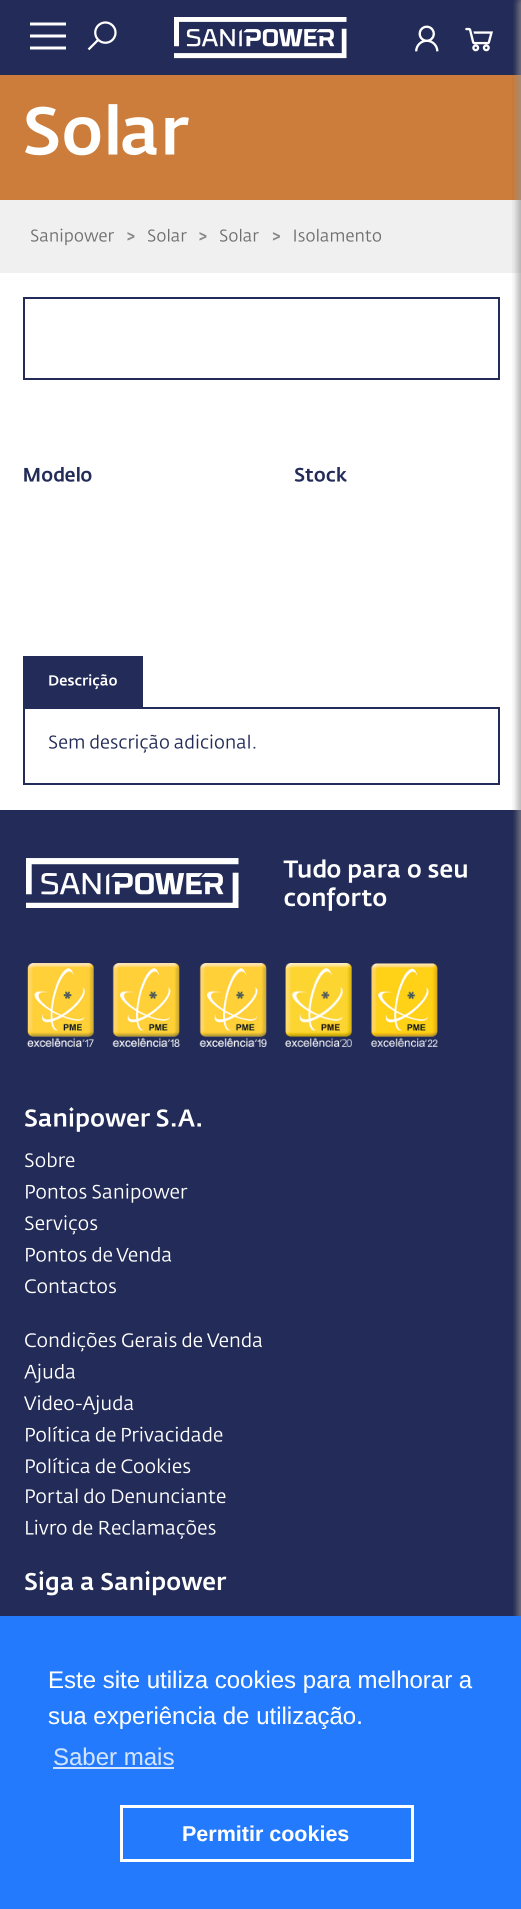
async function draw(canvas) {
  canvas.width = 521;
  canvas.height = 1909;
  const ctx = canvas.getContext('2d');
  ctx.miterLimit = 4;
  ctx.fontKerning = 'normal';
  function label(s, x, y, font, color) {
    ctx.font = font;
    ctx.fillStyle = color;
    ctx.fillText(s, x, y);
  }
  function rect(x, y, w, h, color) {
    ctx.fillStyle = color;
    ctx.fillRect(x, y, w, h);
  }
  async function image(src, x, y, w, h) {
    const img = new Image();
    img.src = src;
    await img.decode();
    ctx.drawImage(img, x, y, w, h);
  }
  let path;

  rect(0, 0, 521, 1909, '#fff');
  rect(0, 0, 521, 75, '#232b58');
  ctx.fillStyle = '#fff';
  path = new Path2D('M30 22.5V25.5H66V22.5ZM30 34.5V37.5H66V34.5ZM30 46.5V49.5H66V46.5Z');
  ctx.fill(path);
  await image('assets/img1.png', 87, 21, 30, 30);
  await image('assets/img2.png', 174, 17, 173, 42);
  await image('assets/img3.png', 415, 25, 24, 27);
  await image('assets/img4.png', 465, 27, 28, 25);
  rect(0, 75, 521, 125, '#cc7d3b');
  rect(0, 200, 521, 73, '#f0f0f0');
  rect(0, 810, 521, 806, '#232b58');
  ctx.fillStyle = '#93939340';
  ctx.filter = 'blur(3px)';
  ctx.beginPath();
  ctx.rect(518, -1, 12, 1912);
  ctx.fill();
  ctx.filter = 'none';
  ctx.filter = 'blur(3px)';
  ctx.beginPath();
  ctx.rect(518, -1, 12, 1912);
  ctx.fill();
  ctx.filter = 'none';
  await image('assets/img5.png', 25, 104, 164, 52);
  await image('assets/img6.png', 31, 228, 83, 18);
  await image('assets/img7.png', 127, 232, 8, 9);
  await image('assets/img8.png', 148, 228, 39, 14);
  await image('assets/img7.png', 199, 232, 8, 9);
  await image('assets/img8.png', 220, 228, 39, 14);
  await image('assets/img9.png', 272, 232, 8, 9);
  await image('assets/img10.png', 294, 228, 87, 14);
  ctx.strokeStyle = '#232b58';
  ctx.lineWidth = 2;
  ctx.strokeRect(24, 298, 475, 81);
  await image('assets/img11.png', 24, 467, 68, 15);
  await image('assets/img12.png', 294, 467, 53, 15);
  rect(23, 656, 120, 51, '#232b58');
  await image('assets/img13.png', 49, 673, 68, 17);
  ctx.strokeRect(24, 708, 475, 76);
  await image('assets/img14.png', 49, 734, 207, 19);
  await image('assets/img15.png', 26, 858, 213, 50);
  await image('assets/img16.png', 283, 859, 184, 24);
  await image('assets/img17.png', 284, 887, 103, 24);
  await image('assets/img18.png', 27, 963, 67, 84);
  await image('assets/img19.png', 112, 963, 68, 84);
  await image('assets/img20.png', 199, 963, 68, 84);
  await image('assets/img21.png', 285, 963, 67, 84);
  await image('assets/img22.png', 371, 963, 67, 84);
  await image('assets/img23.png', 25, 1107, 176, 25);
  await image('assets/img24.png', 25, 1152, 50, 16);
  await image('assets/img25.png', 26, 1183, 162, 20);
  await image('assets/img26.png', 25, 1215, 73, 20);
  await image('assets/img27.png', 26, 1247, 146, 15);
  await image('assets/img28.png', 25, 1279, 91, 15);
  await image('assets/img29.png', 25, 1332, 178, 20);
  await image('assets/img30.png', 207, 1332, 55, 16);
  await image('assets/img31.png', 24, 1363, 51, 20);
  await image('assets/img32.png', 24, 1395, 110, 20);
  await image('assets/img33.png', 26, 1426, 90, 16);
  await image('assets/img34.png', 122, 1426, 101, 16);
  await image('assets/img35.png', 26, 1457, 165, 17);
  await image('assets/img36.png', 26, 1488, 200, 16);
  await image('assets/img37.png', 26, 1519, 67, 16);
  await image('assets/img38.png', 99, 1520, 117, 19);
  await image('assets/img39.png', 25, 1570, 202, 26);
  ctx.fillStyle = '#93939340';
  ctx.filter = 'blur(3px)';
  ctx.beginPath();
  ctx.rect(518, -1, 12, 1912);
  ctx.fill();
  ctx.filter = 'none';
  ctx.filter = 'blur(3px)';
  ctx.beginPath();
  ctx.rect(518, -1, 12, 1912);
  ctx.fill();
  ctx.filter = 'none';
  rect(0, 1616, 521, 293, '#237afc');
  label('Este site utiliza cookies para melhorar a', 48, 1688, '24px Liberation Sans', '#fff');
  label('sua experiência de utilização.', 48, 1724, '24px Liberation Sans', '#fff');
  label('Saber mais', 53, 1765, '24px Liberation Sans', '#d3e4fe');
  rect(53, 1767, 121, 2, '#d3e4fe');
  ctx.strokeStyle = '#fff';
  ctx.lineWidth = 3;
  ctx.strokeRect(121.5, 1806.5, 291, 54);
  label('Permitir cookies', 182, 1841, 'bold 21.5px Liberation Sans', '#fff');
}

draw(document.querySelector('canvas'));
